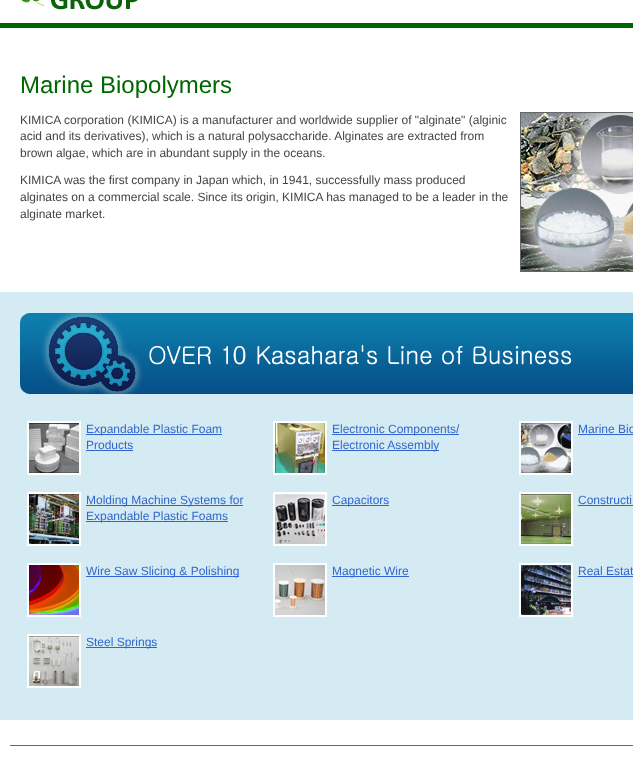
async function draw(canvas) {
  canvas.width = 633;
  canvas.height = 764;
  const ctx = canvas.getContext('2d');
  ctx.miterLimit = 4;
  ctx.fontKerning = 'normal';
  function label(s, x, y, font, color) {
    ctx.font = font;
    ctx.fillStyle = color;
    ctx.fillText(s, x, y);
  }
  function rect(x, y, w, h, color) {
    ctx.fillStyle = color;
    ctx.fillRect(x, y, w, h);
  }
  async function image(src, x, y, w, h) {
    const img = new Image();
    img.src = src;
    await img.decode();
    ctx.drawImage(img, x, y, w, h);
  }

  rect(0, 0, 633, 764, '#fff');
  await image('assets/img1.png', 21, 0, 117, 10);
  rect(0, 23, 633, 5, '#060');
  label('Marine Biopolymers', 20, 93, '24px Liberation Sans', '#060');
  label('KIMICA corporation (KIMICA) is a manufacturer and worldwide supplier of "alginate" (alginic', 20, 124, '12px Liberation Sans', '#444');
  label('acid and its derivatives), which is a natural polysaccharide. Alginates are extracted from', 20, 140, '12px Liberation Sans', '#444');
  label('brown algae, which are in abundant supply in the oceans.', 20, 157, '12px Liberation Sans', '#444');
  await image('assets/img2.png', 520, 112, 113, 160);
  label('KIMICA was the first company in Japan which, in 1941, successfully mass produced', 20, 184, '12px Liberation Sans', '#444');
  label('alginates on a commercial scale. Since its origin, KIMICA has managed to be a leader in the', 20, 201, '12px Liberation Sans', '#444');
  label('alginate market.', 20, 218, '12px Liberation Sans', '#444');
  rect(0, 292, 633, 428, '#d4ebf4');
  await image('assets/img3.png', 20, 313, 613, 81);
  ctx.strokeStyle = '#fff';
  ctx.lineWidth = 2;
  ctx.strokeRect(28, 422, 52, 52);
  await image('assets/img4.png', 29, 423, 50, 50);
  rect(86, 434, 136, 1, '#36c');
  label('Expandable Plastic Foam', 86, 433, '12px Liberation Sans', '#36c');
  label('Products', 86, 449, '12px Liberation Sans', '#36c');
  rect(86, 450, 47, 1, '#36c');
  ctx.strokeRect(274, 422, 52, 52);
  await image('assets/img5.png', 275, 423, 50, 50);
  rect(332, 434, 127, 1, '#36c');
  label('Electronic Components/', 332, 433, '12px Liberation Sans', '#36c');
  rect(332, 450, 107, 1, '#36c');
  label('Electronic Assembly', 332, 449, '12px Liberation Sans', '#36c');
  ctx.strokeRect(520, 422, 52, 52);
  await image('assets/img6.png', 521, 423, 50, 50);
  label('Marine Bio', 578, 433, '12px Liberation Sans', '#36c');
  rect(578, 434, 55, 1, '#36c');
  ctx.strokeRect(28, 493, 52, 52);
  await image('assets/img7.png', 29, 494, 50, 50);
  rect(86, 505, 157, 1, '#36c');
  label('Molding Machine Systems for', 86, 504, '12px Liberation Sans', '#36c');
  rect(86, 521, 142, 1, '#36c');
  label('Expandable Plastic Foams', 86, 520, '12px Liberation Sans', '#36c');
  ctx.strokeRect(274, 493, 52, 52);
  await image('assets/img8.png', 275, 494, 50, 50);
  rect(332, 505, 57, 1, '#36c');
  label('Capacitors', 332, 504, '12px Liberation Sans', '#36c');
  ctx.strokeRect(520, 493, 52, 52);
  await image('assets/img9.png', 521, 494, 50, 50);
  label('Constructi', 578, 504, '12px Liberation Sans', '#36c');
  rect(578, 505, 55, 1, '#36c');
  ctx.strokeRect(28, 564, 52, 52);
  await image('assets/img10.png', 29, 565, 50, 50);
  rect(86, 576, 153, 1, '#36c');
  label('Wire Saw Slicing & Polishing', 86, 575, '12px Liberation Sans', '#36c');
  ctx.strokeRect(274, 564, 52, 52);
  await image('assets/img11.png', 275, 565, 50, 50);
  rect(332, 576, 77, 1, '#36c');
  label('Magnetic Wire', 332, 575, '12px Liberation Sans', '#36c');
  ctx.strokeRect(520, 564, 52, 52);
  await image('assets/img12.png', 521, 565, 50, 50);
  label('Real Estat', 578, 575, '12px Liberation Sans', '#36c');
  rect(578, 576, 55, 1, '#36c');
  ctx.strokeRect(28, 635, 52, 52);
  await image('assets/img13.png', 29, 636, 50, 50);
  rect(86, 647, 71, 1, '#36c');
  label('Steel Springs', 86, 646, '12px Liberation Sans', '#36c');
  rect(10, 745, 623, 1, '#3f873d');
}

draw(document.querySelector('canvas'));
